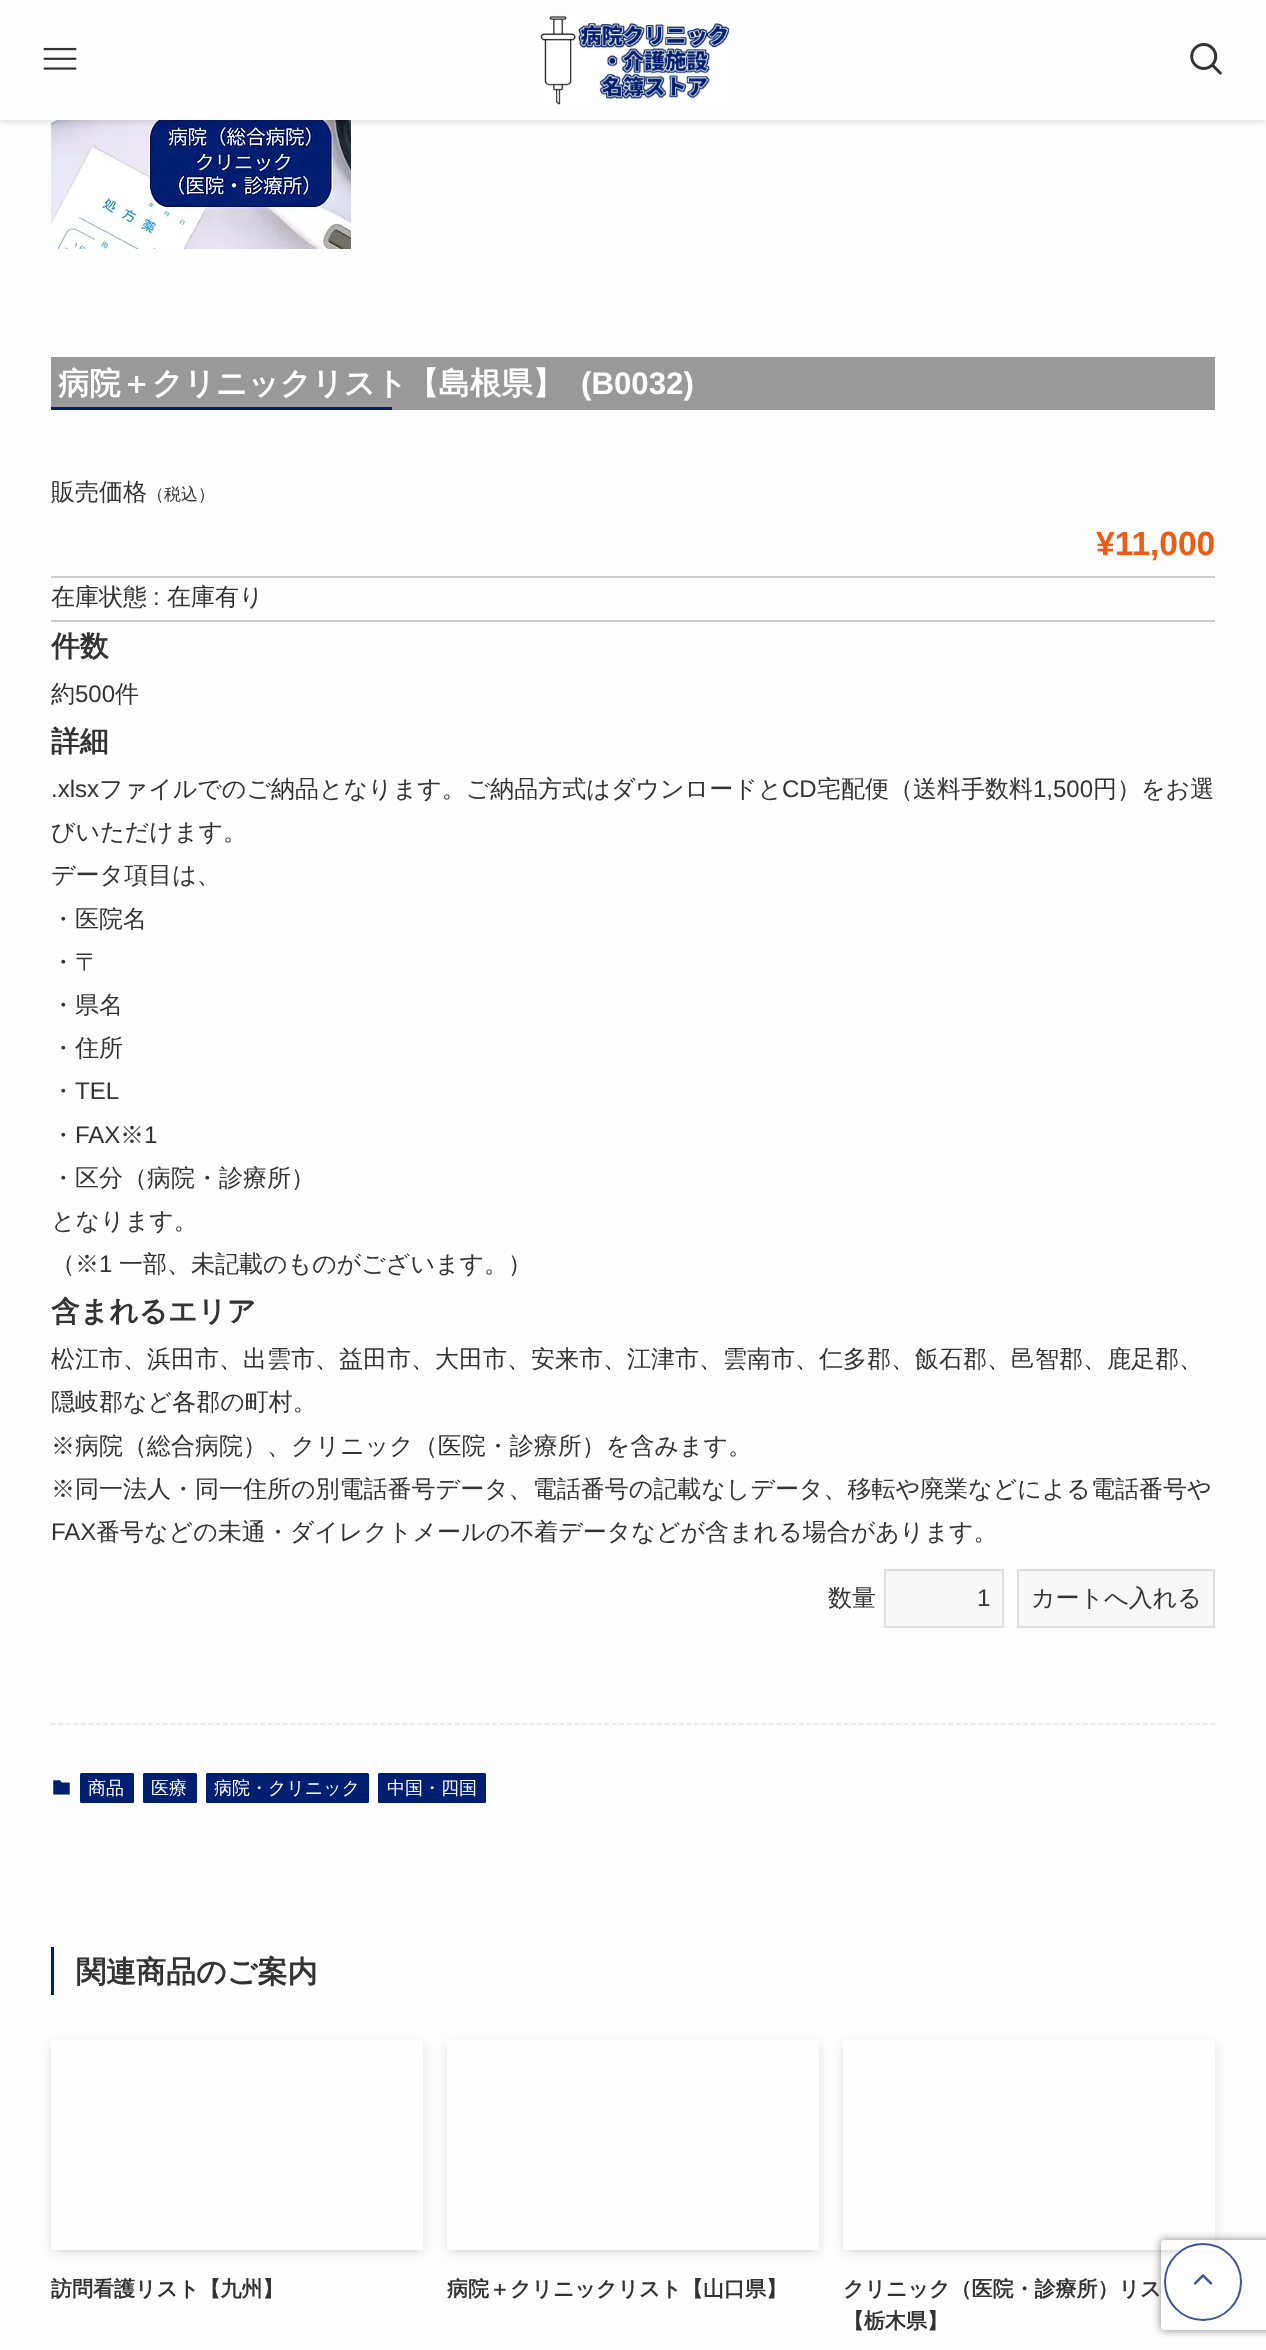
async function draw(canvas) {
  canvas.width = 1266;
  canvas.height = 2350;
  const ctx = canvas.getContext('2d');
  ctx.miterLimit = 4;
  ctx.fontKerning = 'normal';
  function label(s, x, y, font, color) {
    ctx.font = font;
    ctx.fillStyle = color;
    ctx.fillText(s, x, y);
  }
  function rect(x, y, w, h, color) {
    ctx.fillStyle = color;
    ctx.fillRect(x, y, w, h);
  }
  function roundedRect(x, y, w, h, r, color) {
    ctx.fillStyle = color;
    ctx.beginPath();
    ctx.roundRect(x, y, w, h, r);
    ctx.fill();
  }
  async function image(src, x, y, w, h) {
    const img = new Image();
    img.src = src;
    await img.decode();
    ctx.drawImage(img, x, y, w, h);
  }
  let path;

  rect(0, 0, 1266, 2350, '#fdfdfd');
  await image('assets/img4.png', 51, 120, 300, 129);
  ctx.fillStyle = '#0000001f';
  ctx.filter = 'blur(3px)';
  ctx.beginPath();
  ctx.rect(0, 2, 1266, 120);
  ctx.fill();
  ctx.filter = 'none';
  rect(0, 0, 1266, 120, '#fdfdfd');
  await image('assets/img1.png', 43, 47, 34, 23);
  await image('assets/img2.png', 540, 15, 190, 90);
  await image('assets/img3.png', 1190, 43, 32, 32);
  rect(51, 357, 1164, 53, '#999');
  label('病院＋クリニックリスト【島根県】', 58, 394, 'bold 31.25px WenQuanYi Zen Hei', '#fff');
  label('(B0032)', 581, 394, 'bold 31.25px Liberation Sans', '#fff');
  rect(51, 407, 341, 3, '#001f70');
  rect(51, 576, 1164, 2, '#ccc');
  label('販売価格', 51, 500, '500 24px WenQuanYi Zen Hei', '#333');
  label('（税込）', 147, 500, '500 17px WenQuanYi Zen Hei', '#333');
  label('¥11,000', 1096, 555, 'bold 33.5px Liberation Sans', '#ed5b14');
  rect(51, 620, 1164, 2, '#ccc');
  label('在庫状態', 51, 605, '500 24px WenQuanYi Zen Hei', '#333');
  label(':', 153, 605, '24px Liberation Sans', '#333');
  label('在庫有り', 167, 605, '500 24px WenQuanYi Zen Hei', '#333');
  label('件数', 51, 656, 'bold 28.75px WenQuanYi Zen Hei', '#333');
  label('約', 51, 702, '500 24px WenQuanYi Zen Hei', '#333');
  label('500', 75, 702, '24px Liberation Sans', '#333');
  label('件', 115, 702, '500 24px WenQuanYi Zen Hei', '#333');
  label('詳細', 51, 751, 'bold 28.75px WenQuanYi Zen Hei', '#333');
  label('.xlsx', 51, 797, '24px Liberation Sans', '#333');
  label('ファイルでのご納品となります。ご納品方式はダウンロードと', 99, 797, '500 24px WenQuanYi Zen Hei', '#333');
  label('CD', 782, 797, '24px Liberation Sans', '#333');
  label('宅配便（送料手数料', 817, 797, '500 24px WenQuanYi Zen Hei', '#333');
  label('1,500', 1033, 797, '24px Liberation Sans', '#333');
  label('円）をお選', 1093, 797, '500 24px WenQuanYi Zen Hei', '#333');
  label('びいただけます。', 51, 840, '500 24px WenQuanYi Zen Hei', '#333');
  label('データ項目は、', 51, 883, '500 24px WenQuanYi Zen Hei', '#333');
  label('・医院名', 51, 927, '500 24px WenQuanYi Zen Hei', '#333');
  label('・〒', 51, 970, '500 24px WenQuanYi Zen Hei', '#333');
  label('・県名', 51, 1013, '500 24px WenQuanYi Zen Hei', '#333');
  label('・住所', 51, 1056, '500 24px WenQuanYi Zen Hei', '#333');
  label('・', 51, 1099, '500 24px WenQuanYi Zen Hei', '#333');
  label('TEL', 75, 1099, '24px Liberation Sans', '#333');
  label('・', 51, 1143, '500 24px WenQuanYi Zen Hei', '#333');
  label('FAX', 75, 1143, '24px Liberation Sans', '#333');
  label('※', 120, 1143, '500 24px WenQuanYi Zen Hei', '#333');
  label('1', 144, 1143, '24px Liberation Sans', '#333');
  label('・区分（病院・診療所）', 51, 1186, '500 24px WenQuanYi Zen Hei', '#333');
  label('となります。', 51, 1229, '500 24px WenQuanYi Zen Hei', '#333');
  label('（※', 51, 1272, '500 24px WenQuanYi Zen Hei', '#333');
  label('1', 99, 1272, '24px Liberation Sans', '#333');
  label('一部、未記載のものがございます。）', 119, 1272, '500 24px WenQuanYi Zen Hei', '#333');
  label('含まれるエリア', 51, 1321, 'bold 28.75px WenQuanYi Zen Hei', '#333');
  label('松江市、浜田市、出雲市、益田市、大田市、安来市、江津市、雲南市、仁多郡、飯石郡、邑智郡、鹿足郡、', 51, 1367, '500 24px WenQuanYi Zen Hei', '#333');
  label('隠岐郡など各郡の町村。', 51, 1410, '500 24px WenQuanYi Zen Hei', '#333');
  label('※病院（総合病院）、クリニック（医院・診療所）を含みます。', 51, 1454, '500 24px WenQuanYi Zen Hei', '#333');
  label('※同一法人・同一住所の別電話番号データ、電話番号の記載なしデータ、移転や廃業などによる電話番号や', 51, 1497, '500 24px WenQuanYi Zen Hei', '#333');
  label('FAX', 51, 1540, '24px Liberation Sans', '#333');
  label('番号などの未通・ダイレクトメールの不着データなどが含まれる場合があります。', 96, 1540, '500 24px WenQuanYi Zen Hei', '#333');
  label('数量', 828, 1606, '500 24px WenQuanYi Zen Hei', '#333');
  ctx.fillStyle = '#f7f7f7';
  ctx.beginPath();
  ctx.rect(885, 1570, 118, 57);
  ctx.fill();
  ctx.strokeStyle = '#dfdfdf';
  ctx.lineWidth = 2;
  ctx.stroke();
  label('1', 977, 1606, '24px Liberation Sans', '#333');
  ctx.fillStyle = '#f7f7f7';
  ctx.beginPath();
  ctx.rect(1018, 1570, 196, 57);
  ctx.fill();
  ctx.stroke();
  label('カートへ入れる', 1031, 1606, '500 24px WenQuanYi Zen Hei', '#333');
  path = new Path2D('M51 1724H1215');
  ctx.strokeStyle = '#e2e2e2';
  ctx.lineWidth = 1.5;
  ctx.setLineDash([4.5, 2.98]);
  ctx.stroke(path);
  await image('assets/img5.png', 53, 1780, 17, 15);
  roundedRect(80, 1773, 54, 30, 1.5, '#001f70');
  label('商品', 88, 1794, '500 18px WenQuanYi Zen Hei', '#fff');
  roundedRect(143, 1773, 54, 30, 1.5, '#001f70');
  label('医療', 151, 1794, '500 18px WenQuanYi Zen Hei', '#fff');
  roundedRect(206, 1773, 163, 30, 1.5, '#001f70');
  label('病院・クリニック', 214, 1794, '500 18px WenQuanYi Zen Hei', '#fff');
  roundedRect(378, 1773, 108, 30, 1.5, '#001f70');
  label('中国・四国', 387, 1794, '500 18px WenQuanYi Zen Hei', '#fff');
  rect(51, 1947, 3, 48, '#001f70');
  label('関連商品のご案内', 76, 1982, 'bold 30px WenQuanYi Zen Hei', '#333');
  ctx.save();
  ctx.beginPath();
  ctx.rect(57, 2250, 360, 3);
  ctx.clip();
  ctx.fillStyle = '#0000001a';
  ctx.filter = 'blur(3px)';
  ctx.beginPath();
  ctx.rect(57, 2052, 360, 198);
  ctx.fill();
  ctx.filter = 'none';
  ctx.restore();
  ctx.save();
  path = new Path2D('M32 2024H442V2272H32ZM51 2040H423V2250H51Z');
  ctx.clip(path, 'evenodd');
  ctx.fillStyle = '#0000001a';
  ctx.filter = 'blur(6px)';
  ctx.beginPath();
  ctx.rect(51, 2043, 372, 210);
  ctx.fill();
  ctx.filter = 'none';
  ctx.restore();
  label('訪問看護リスト【九州】', 51, 2296, 'bold 21px WenQuanYi Zen Hei', '#333');
  ctx.save();
  ctx.beginPath();
  ctx.rect(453, 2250, 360, 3);
  ctx.clip();
  ctx.fillStyle = '#0000001a';
  ctx.filter = 'blur(3px)';
  ctx.beginPath();
  ctx.rect(453, 2052, 360, 198);
  ctx.fill();
  ctx.filter = 'none';
  ctx.restore();
  ctx.save();
  path = new Path2D('M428 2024H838V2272H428ZM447 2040H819V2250H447Z');
  ctx.clip(path, 'evenodd');
  ctx.fillStyle = '#0000001a';
  ctx.filter = 'blur(6px)';
  ctx.beginPath();
  ctx.rect(447, 2043, 372, 210);
  ctx.fill();
  ctx.filter = 'none';
  ctx.restore();
  label('病院＋クリニックリスト【山口県】', 447, 2296, 'bold 21px WenQuanYi Zen Hei', '#333');
  ctx.save();
  ctx.beginPath();
  ctx.rect(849, 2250, 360, 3);
  ctx.clip();
  ctx.fillStyle = '#0000001a';
  ctx.filter = 'blur(3px)';
  ctx.beginPath();
  ctx.rect(849, 2052, 360, 198);
  ctx.fill();
  ctx.filter = 'none';
  ctx.restore();
  ctx.save();
  path = new Path2D('M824 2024H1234V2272H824ZM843 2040H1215V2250H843Z');
  ctx.clip(path, 'evenodd');
  ctx.fillStyle = '#0000001a';
  ctx.filter = 'blur(6px)';
  ctx.beginPath();
  ctx.rect(843, 2043, 372, 210);
  ctx.fill();
  ctx.filter = 'none';
  ctx.restore();
  ctx.save();
  path = new Path2D('M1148 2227H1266V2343H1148ZM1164 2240H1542C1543.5 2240 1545 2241.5 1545 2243V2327C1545 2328.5 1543.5 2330 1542 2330H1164C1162.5 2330 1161 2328.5 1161 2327V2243C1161 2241.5 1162.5 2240 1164 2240Z');
  ctx.clip(path, 'evenodd');
  ctx.fillStyle = '#808080';
  ctx.filter = 'blur(4px)';
  ctx.beginPath();
  ctx.roundRect(1161, 2240, 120, 90, 3);
  ctx.fill();
  ctx.filter = 'none';
  ctx.restore();
  label('クリニック（医院・診療所）リス', 843, 2296, 'bold 21px WenQuanYi Zen Hei', '#333');
  label('【栃木県】', 843, 2328, 'bold 21px WenQuanYi Zen Hei', '#333');
  ctx.fillStyle = '#ffffffbf';
  ctx.beginPath();
  ctx.arc(1203, 2282, 39, 0, 2 * Math.PI);
  ctx.fill();
  ctx.beginPath();
  ctx.arc(1203, 2282, 38, 0, 2 * Math.PI);
  ctx.strokeStyle = '#001f70bf';
  ctx.lineWidth = 2;
  ctx.setLineDash([]);
  ctx.stroke();
  await image('assets/img6.png', 1193, 2274, 20, 11);
}

draw(document.querySelector('canvas'));
